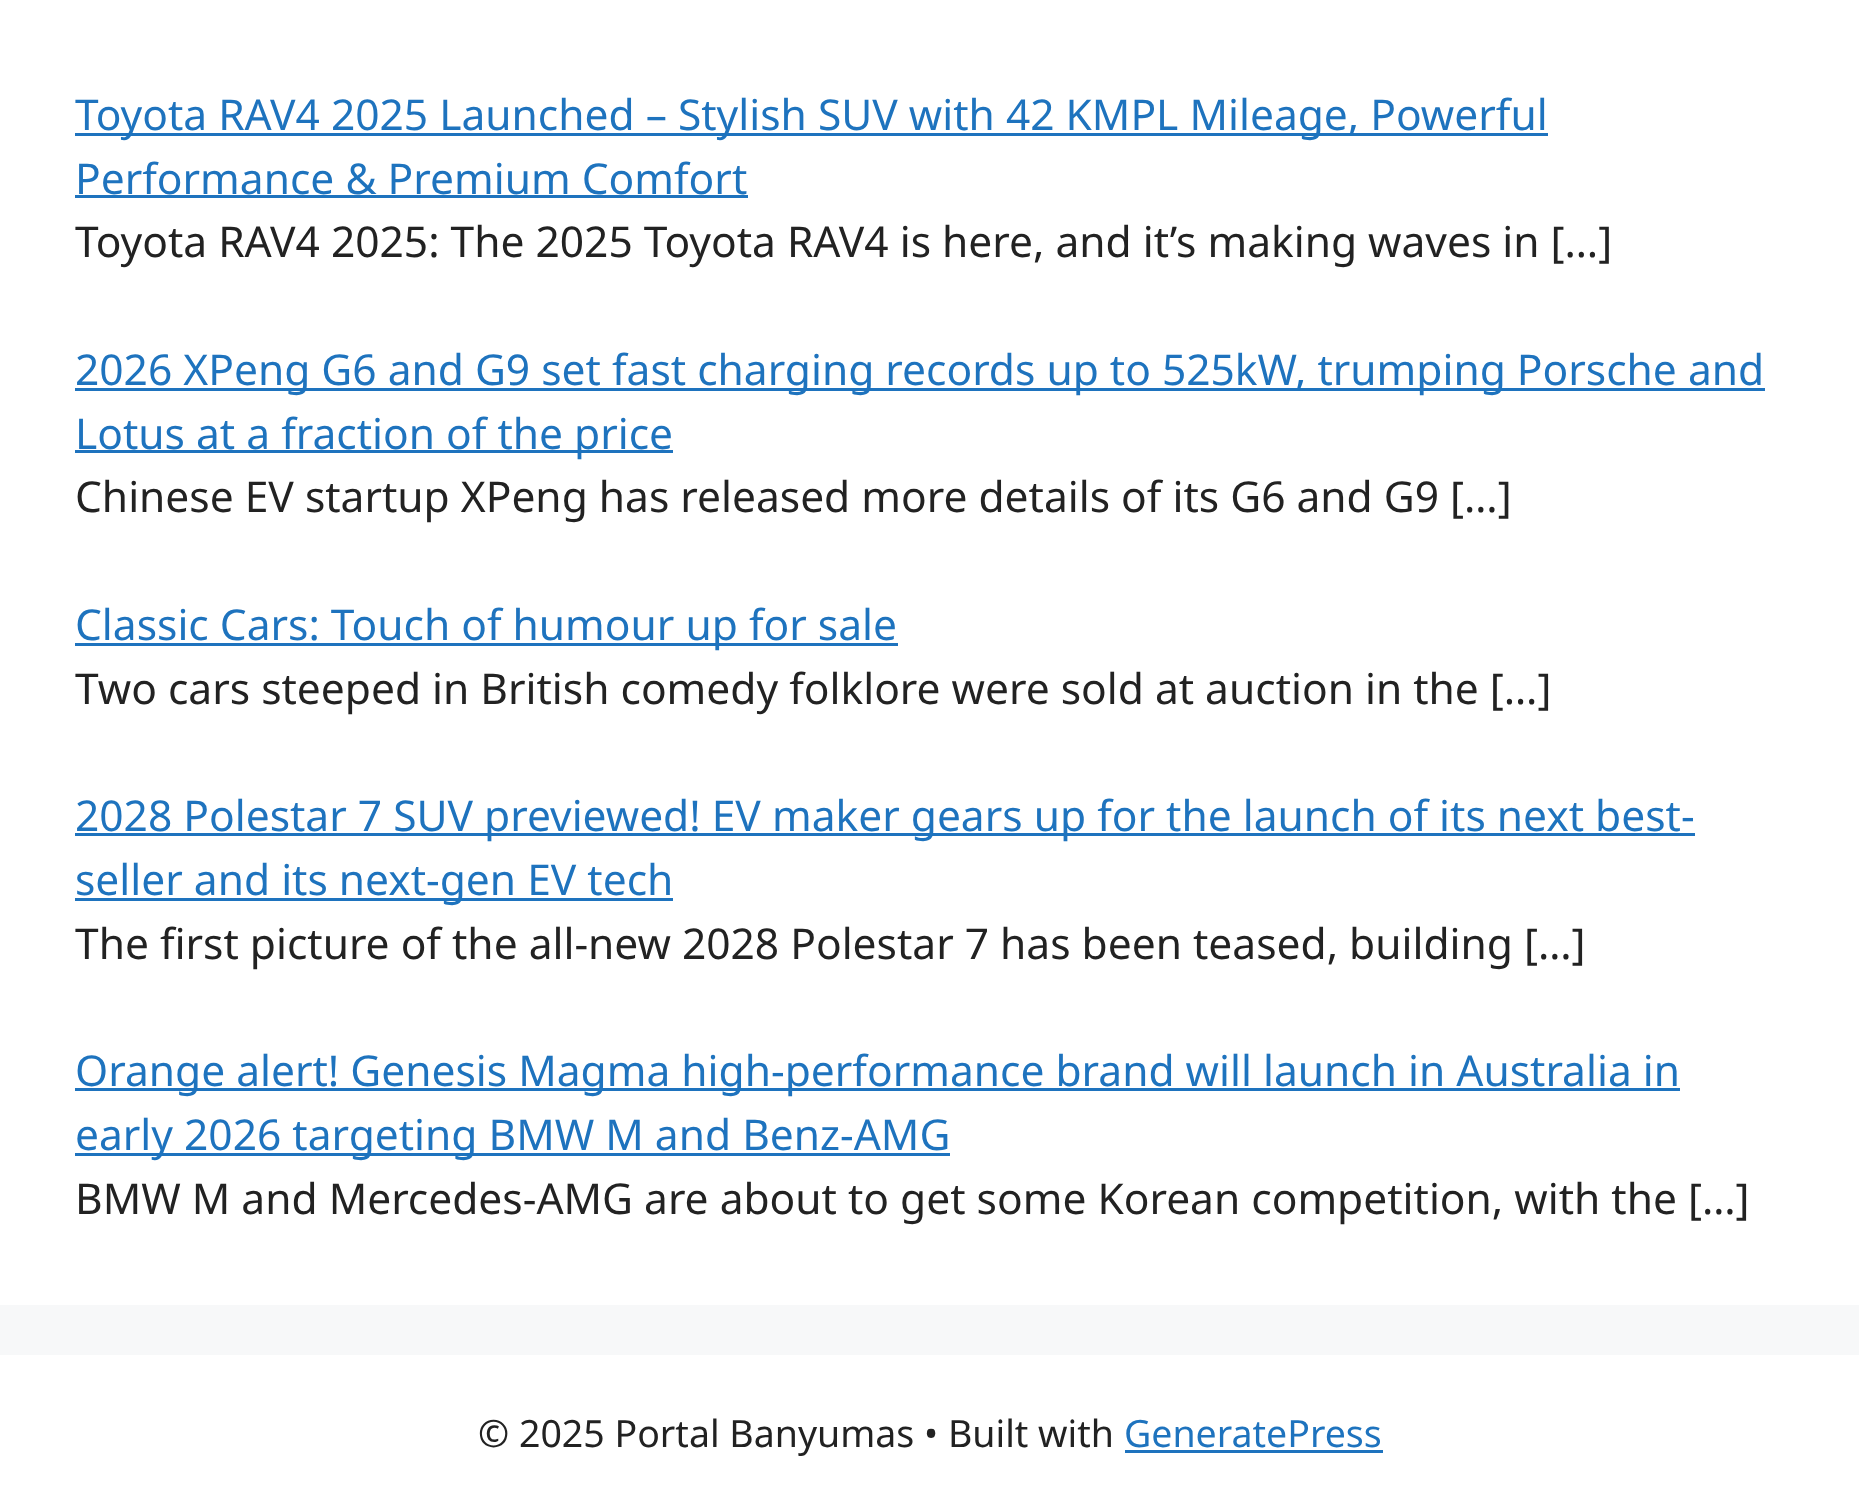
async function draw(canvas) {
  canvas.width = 1859;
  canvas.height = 1509;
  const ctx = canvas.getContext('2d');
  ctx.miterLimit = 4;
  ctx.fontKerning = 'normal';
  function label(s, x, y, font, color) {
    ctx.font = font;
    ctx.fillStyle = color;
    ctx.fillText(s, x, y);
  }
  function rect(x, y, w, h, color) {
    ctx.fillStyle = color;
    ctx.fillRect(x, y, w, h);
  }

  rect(0, 0, 1859, 1509, '#f7f8f9');
  rect(0, 0, 1859, 1305, '#fff');
  rect(75, 133, 1473, 3, '#1e73be');
  label('Toyota RAV4 2025 Launched – Stylish SUV with 42 KMPL Mileage, Powerful', 75, 130, '42.5px Noto Sans', '#1e73be');
  label('Performance & Premium Comfort', 75, 194, '42.5px Noto Sans', '#1e73be');
  rect(75, 195, 673, 3, '#1e73be');
  label('Toyota RAV4 2025: The 2025 Toyota RAV4 is here, and it’s making waves in […]', 75, 257, '42.5px Noto Sans', '#222');
  rect(75, 388, 1690, 3, '#1e73be');
  label('2026 XPeng G6 and G9 set fast charging records up to 525kW, trumping Porsche and', 75, 385, '42.5px Noto Sans', '#1e73be');
  rect(75, 450, 598, 3, '#1e73be');
  label('Lotus at a fraction of the price', 75, 449, '42.5px Noto Sans', '#1e73be');
  label('Chinese EV startup XPeng has released more details of its G6 and G9 […]', 75, 512, '42.5px Noto Sans', '#222');
  rect(75, 643, 823, 3, '#1e73be');
  label('Classic Cars: Touch of humour up for sale', 75, 640, '42.5px Noto Sans', '#1e73be');
  label('Two cars steeped in British comedy folklore were sold at auction in the […]', 75, 704, '42.5px Noto Sans', '#222');
  rect(75, 833, 1620, 3, '#1e73be');
  label('2028 Polestar 7 SUV previewed! EV maker gears up for the launch of its next best-', 75, 831, '42.5px Noto Sans', '#1e73be');
  rect(75, 898, 598, 3, '#1e73be');
  label('seller and its next-gen EV tech', 75, 895, '42.5px Noto Sans', '#1e73be');
  label('The first picture of the all-new 2028 Polestar 7 has been teased, building […]', 75, 959, '42.5px Noto Sans', '#222');
  rect(75, 1088, 1605, 3, '#1e73be');
  label('Orange alert! Genesis Magma high-performance brand will launch in Australia in', 75, 1086, '42.5px Noto Sans', '#1e73be');
  rect(75, 1153, 875, 3, '#1e73be');
  label('early 2026 targeting BMW M and Benz-AMG', 75, 1150, '42.5px Noto Sans', '#1e73be');
  label('BMW M and Mercedes-AMG are about to get some Korean competition, with the […]', 75, 1214, '42.5px Noto Sans', '#222');
  rect(0, 1355, 1859, 154, '#fff');
  label('© 2025 Portal Banyumas • Built with', 478, 1447, '37.5px Noto Sans', '#222');
  label('GeneratePress', 1124, 1447, '37.5px Noto Sans', '#1e73be');
  rect(1125, 1450, 258, 3, '#1e73be');
}

draw(document.querySelector('canvas'));
